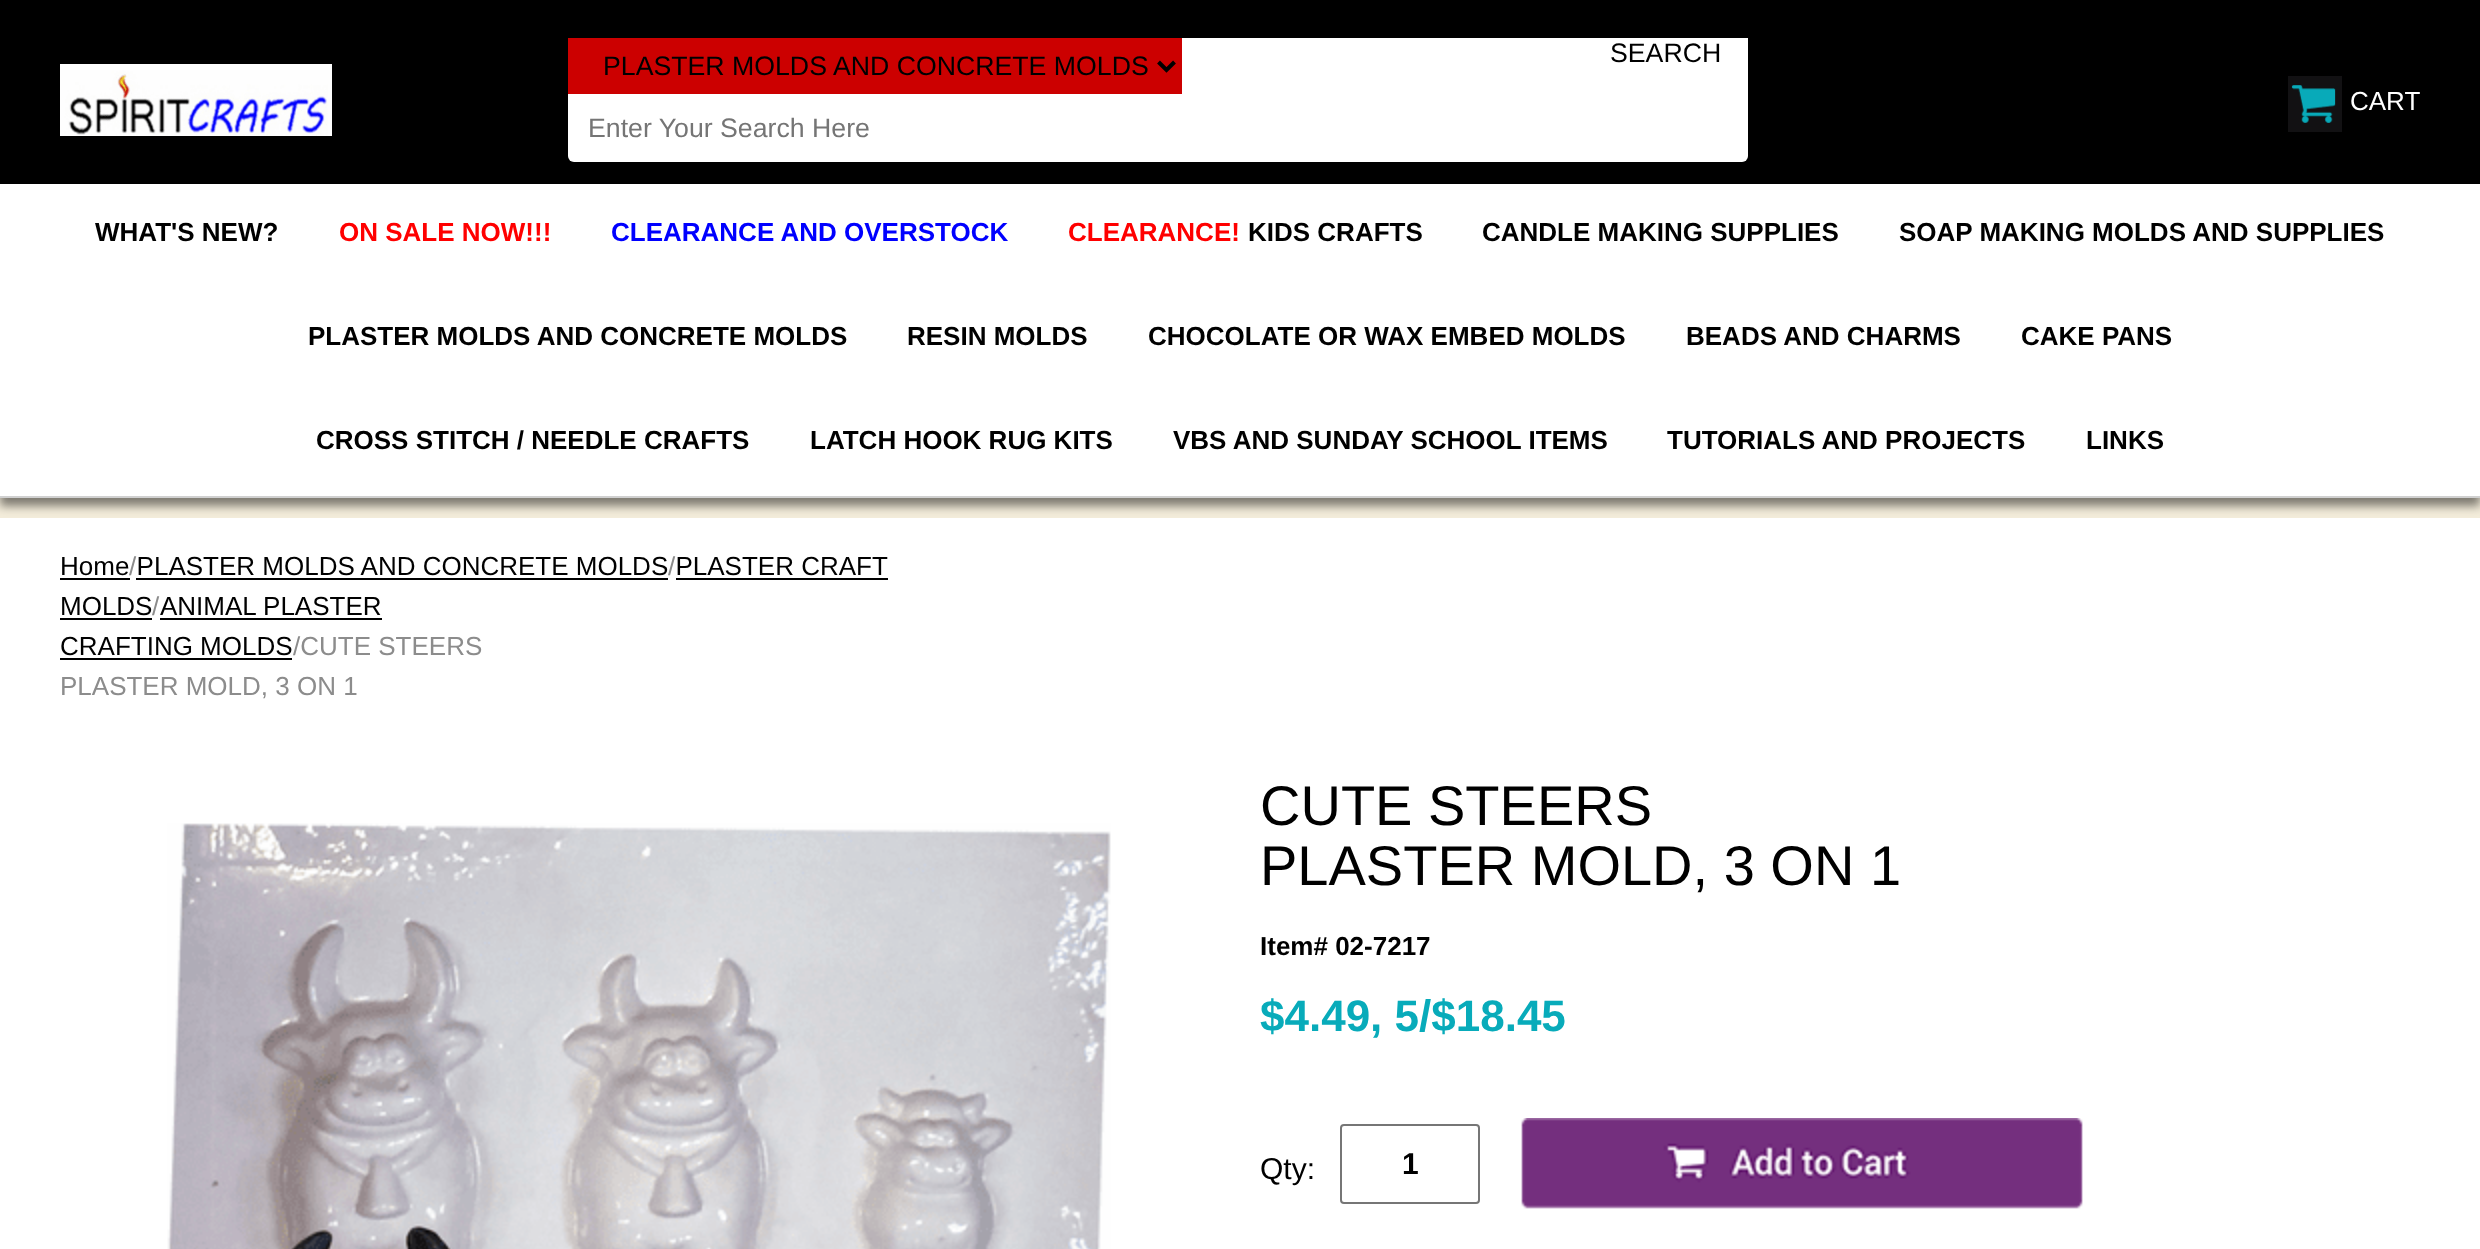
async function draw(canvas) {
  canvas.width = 2480;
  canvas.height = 1249;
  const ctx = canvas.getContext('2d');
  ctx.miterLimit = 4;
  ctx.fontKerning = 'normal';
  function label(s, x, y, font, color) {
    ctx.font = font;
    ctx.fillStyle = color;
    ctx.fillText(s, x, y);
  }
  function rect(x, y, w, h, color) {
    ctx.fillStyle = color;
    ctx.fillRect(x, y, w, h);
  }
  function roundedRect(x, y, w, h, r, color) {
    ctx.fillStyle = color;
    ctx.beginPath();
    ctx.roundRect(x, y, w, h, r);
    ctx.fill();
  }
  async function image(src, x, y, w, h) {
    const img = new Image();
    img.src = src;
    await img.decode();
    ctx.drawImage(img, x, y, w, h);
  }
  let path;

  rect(0, 0, 2480, 1249, '#f3ecda');
  rect(0, 0, 2480, 184, '#000');
  await image('assets/img1.png', 60, 64, 272, 72);
  roundedRect(568, 38, 1180, 124, 6, '#fff');
  rect(1742, 38, 6, 6, '#fff');
  label('SEARCH', 1610, 62, '26.7px Liberation Sans', '#000');
  rect(568, 38, 614, 56, '#c00');
  path = new Path2D('M1158.5 62L1166.5 70L1174.5 62');
  ctx.strokeStyle = '#000';
  ctx.lineWidth = 4;
  ctx.stroke(path);
  label('PLASTER MOLDS AND CONCRETE MOLDS', 603, 75, '26.7px Liberation Sans', '#000');
  label('Enter Your Search Here', 588, 137, '26.7px Liberation Sans', '#757575');
  await image('assets/img2.png', 2288, 76, 54, 56);
  label('CART', 2350, 110, '26px Liberation Sans', '#fff');
  ctx.fillStyle = '#0000007a';
  ctx.filter = 'blur(5px)';
  ctx.beginPath();
  ctx.rect(0, 192, 2480, 314);
  ctx.fill();
  ctx.filter = 'none';
  rect(0, 184, 2480, 312, '#fff');
  rect(0, 496, 2480, 2, '#d0d0d0');
  label('WHAT\'S NEW?', 95, 241, 'bold 26px Liberation Sans', '#000');
  label('ON SALE NOW!!!', 339, 241, 'bold 26px Liberation Sans', '#f00');
  label('CLEARANCE AND OVERSTOCK', 611, 241, 'bold 26px Liberation Sans', '#00f');
  label('CLEARANCE!', 1068, 241, 'bold 26px Liberation Sans', '#f00');
  label('KIDS CRAFTS', 1248, 241, 'bold 26px Liberation Sans', '#000');
  label('CANDLE MAKING SUPPLIES', 1482, 241, 'bold 26px Liberation Sans', '#000');
  label('SOAP MAKING MOLDS AND SUPPLIES', 1899, 241, 'bold 26px Liberation Sans', '#000');
  label('PLASTER MOLDS AND CONCRETE MOLDS', 308, 345, 'bold 26px Liberation Sans', '#000');
  label('RESIN MOLDS', 907, 345, 'bold 26px Liberation Sans', '#000');
  label('CHOCOLATE OR WAX EMBED MOLDS', 1148, 345, 'bold 26px Liberation Sans', '#000');
  label('BEADS AND CHARMS', 1686, 345, 'bold 26px Liberation Sans', '#000');
  label('CAKE PANS', 2021, 345, 'bold 26px Liberation Sans', '#000');
  label('CROSS STITCH / NEEDLE CRAFTS', 316, 449, 'bold 26px Liberation Sans', '#000');
  label('LATCH HOOK RUG KITS', 810, 449, 'bold 26px Liberation Sans', '#000');
  label('VBS AND SUNDAY SCHOOL ITEMS', 1173, 449, 'bold 26px Liberation Sans', '#000');
  label('TUTORIALS AND PROJECTS', 1667, 449, 'bold 26px Liberation Sans', '#000');
  label('LINKS', 2086, 449, 'bold 26px Liberation Sans', '#000');
  rect(0, 518, 2480, 731, '#fff');
  label('Home PLASTER MOLDS AND CONCRETE MOLDS PLASTER CRAFT', 60, 575, '26px Liberation Sans', '#000');
  rect(60, 578, 70, 2, '#000');
  label('/', 129, 575, '26px Liberation Sans', '#8c8c8c');
  label('/', 668, 575, '26px Liberation Sans', '#8c8c8c');
  rect(136, 578, 532, 2, '#000');
  label('MOLDS', 60, 615, '26px Liberation Sans', '#000');
  rect(676, 578, 212, 2, '#000');
  rect(60, 618, 92, 2, '#000');
  label('/', 152, 615, '26px Liberation Sans', '#8c8c8c');
  label('ANIMAL PLASTER', 160, 615, '26px Liberation Sans', '#000');
  rect(160, 618, 222, 2, '#000');
  label('CRAFTING MOLDS', 60, 655, '26px Liberation Sans', '#000');
  rect(60, 658, 232, 2, '#000');
  label('/CUTE STEERS', 293, 655, '26px Liberation Sans', '#8c8c8c');
  label('PLASTER MOLD, 3 ON 1', 60, 695, '26px Liberation Sans', '#8c8c8c');
  await image('assets/img3.png', 167, 823, 944, 426);
  label('CUTE STEERS', 1260, 825, '56px Liberation Sans', '#000');
  label('PLASTER MOLD, 3 ON 1', 1260, 885, '56px Liberation Sans', '#000');
  label('Item# 02-7217', 1260, 955, 'bold 26px Liberation Sans', '#000');
  label('$4.49, 5/$18.45', 1260, 1031, 'bold 44px Liberation Sans', '#08abba');
  label('Qty:', 1260, 1179, '30px Liberation Sans', '#000');
  ctx.beginPath();
  ctx.roundRect(1341, 1125, 138, 78, 3);
  ctx.strokeStyle = '#767676';
  ctx.lineWidth = 2;
  ctx.stroke();
  label('1', 1402, 1174, 'bold 30px Liberation Sans', '#000');
  await image('assets/img4.png', 1521, 1118, 562, 91);
}

draw(document.querySelector('canvas'));
